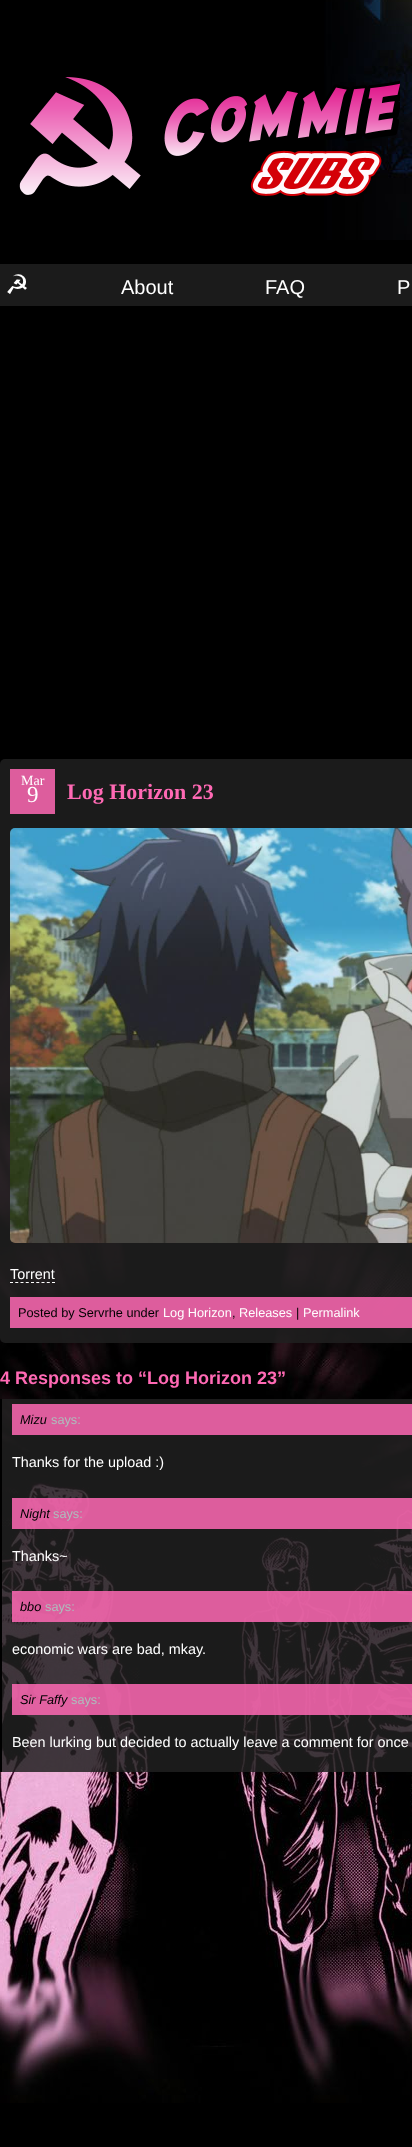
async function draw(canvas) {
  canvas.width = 412;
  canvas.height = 2147;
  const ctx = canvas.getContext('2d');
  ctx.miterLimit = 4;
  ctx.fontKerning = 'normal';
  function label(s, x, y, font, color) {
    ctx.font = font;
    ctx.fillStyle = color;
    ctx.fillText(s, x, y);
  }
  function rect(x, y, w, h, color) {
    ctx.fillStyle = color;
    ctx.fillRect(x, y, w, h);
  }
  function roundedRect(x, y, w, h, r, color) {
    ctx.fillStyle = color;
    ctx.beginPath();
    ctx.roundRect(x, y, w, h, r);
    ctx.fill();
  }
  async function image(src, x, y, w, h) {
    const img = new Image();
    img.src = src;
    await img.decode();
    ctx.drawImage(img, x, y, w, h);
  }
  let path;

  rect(0, 0, 412, 2147, '#000');
  await image('assets/img1.png', 0, 892, 412, 1211);
  await image('assets/img2.png', 19, 0, 393, 240);
  rect(0, 264, 412, 42, '#1b1b1b');
  label('☭', 5, 294, '27px DejaVu Sans', '#fff');
  label('About', 121, 294, '20px Liberation Sans', '#fff');
  label('FAQ', 265, 294, '20px Liberation Sans', '#fff');
  label('P', 397, 294, '20px Liberation Sans', '#fff');
  roundedRect(0, 759, 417, 584, 5, '#202020d9');
  rect(10, 769, 45, 45, '#dd5d9d');
  label('Mar', 21, 785, '14px Liberation Serif', '#fff');
  label('9', 27, 802, '23px Liberation Serif', '#fff');
  label('Log Horizon 23', 67, 799, 'bold 22px Liberation Serif', '#ff69b4');
  await image('assets/img3.png', 10, 828, 402, 415);
  label('Torrent', 10, 1279, '14.4px Liberation Sans', '#fff');
  path = new Path2D('M10 1282.5H55');
  ctx.strokeStyle = '#fff';
  ctx.setLineDash([3, 2.25]);
  ctx.stroke(path);
  rect(10, 1297, 402, 31, '#ff69b4d9');
  label('Posted by Servrhe under', 18, 1317, '12.75px Liberation Sans', '#000');
  label('Log Horizon', 163, 1317, '12.75px Liberation Sans', '#fff');
  label(',', 232, 1317, '12.75px Liberation Sans', '#000');
  label('Releases', 239, 1317, '12.75px Liberation Sans', '#fff');
  label('|', 296, 1317, '12.75px Liberation Sans', '#000');
  label('Permalink', 303, 1317, '12.75px Liberation Sans', '#fff');
  label('4 Responses to “Log Horizon 23”', 0, 1384, 'bold 18px Liberation Sans', '#ff69b4');
  rect(2, 1399, 410, 373, '#202020d9');
  rect(0, 1399, 2, 373, '#000');
  rect(12, 1404, 400, 31, '#ff69b4d9');
  label('Mizu', 20, 1424, 'italic 12.75px Liberation Sans', '#000');
  label('says:', 51, 1424, '12.75px Liberation Sans', '#aebdbd');
  label('Thanks for the upload :)', 12, 1467, '14.4px Liberation Sans', '#fff');
  rect(12, 1498, 400, 31, '#ff69b4d9');
  label('Night', 20, 1518, 'italic 12.75px Liberation Sans', '#000');
  label('says:', 53, 1518, '12.75px Liberation Sans', '#aebdbd');
  label('Thanks~', 12, 1561, '14.4px Liberation Sans', '#fff');
  rect(12, 1591, 400, 31, '#ff69b4d9');
  label('bbo', 20, 1611, 'italic 12.75px Liberation Sans', '#000');
  label('says:', 45, 1611, '12.75px Liberation Sans', '#aebdbd');
  label('economic wars are bad, mkay.', 12, 1654, '14.4px Liberation Sans', '#fff');
  rect(12, 1684, 400, 31, '#ff69b4d9');
  label('Sir Faffy', 20, 1704, 'italic 12.75px Liberation Sans', '#000');
  label('says:', 71, 1704, '12.75px Liberation Sans', '#aebdbd');
  label('Been lurking but decided to actually leave a comment for once', 12, 1747, '14.4px Liberation Sans', '#fff');
}

draw(document.querySelector('canvas'));
